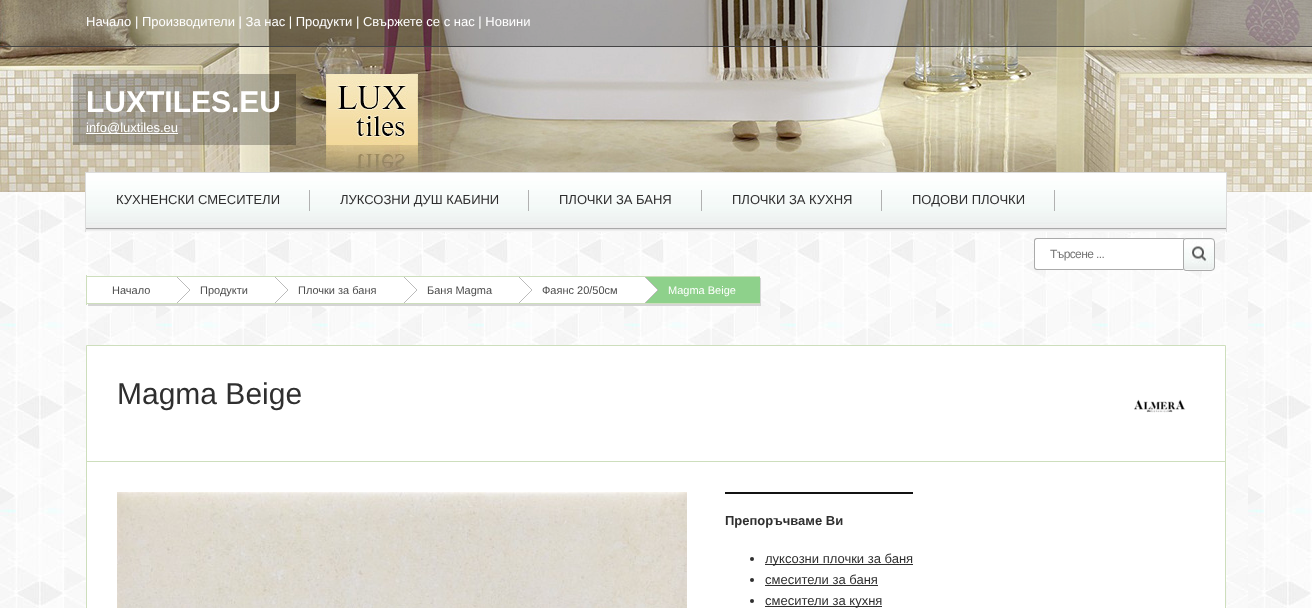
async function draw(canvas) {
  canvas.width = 1312;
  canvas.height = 608;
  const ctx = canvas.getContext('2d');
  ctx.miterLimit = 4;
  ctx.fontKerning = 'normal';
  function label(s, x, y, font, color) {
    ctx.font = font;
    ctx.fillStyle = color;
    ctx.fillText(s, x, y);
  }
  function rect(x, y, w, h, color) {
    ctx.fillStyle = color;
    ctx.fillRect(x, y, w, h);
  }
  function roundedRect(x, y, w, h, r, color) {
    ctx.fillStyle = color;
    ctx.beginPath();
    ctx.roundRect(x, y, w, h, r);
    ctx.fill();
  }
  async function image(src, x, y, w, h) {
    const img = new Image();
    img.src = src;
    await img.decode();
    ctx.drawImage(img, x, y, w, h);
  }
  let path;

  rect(0, 0, 1312, 608, '#fff');
  await image('assets/img1.png', 0, 192, 1312, 416);
  await image('assets/img2.png', 0, 0, 1312, 192);
  rect(0, 0, 1312, 46, '#00000033');
  rect(0, 46, 1312, 1, '#444');
  label('Начало | Производители | За нас | Продукти | Свържете се с нас | Новини', 86, 26, '13px Liberation Sans', '#fff');
  label('LUXTILES.EU', 86, 112, 'bold 30px Liberation Sans', '#fff');
  rect(86, 133, 92, 1, '#fff');
  label('info@luxtiles.eu', 86, 132, '13px Liberation Sans', '#fff');
  await image('assets/img3.png', 86, 173, 1140, 59);
  rect(85, 172, 1142, 1, '#dcdcdc');
  rect(1226, 172, 1, 60, '#dcdcdc');
  rect(85, 172, 1, 60, '#dcdcdc');
  rect(309, 190, 1, 21, '#b1b1b1');
  label('КУХНЕНСКИ СМЕСИТЕЛИ', 116, 204, '13px Liberation Sans', '#2f2f2f');
  rect(528, 190, 1, 21, '#b1b1b1');
  label('ЛУКСОЗНИ ДУШ КАБИНИ', 340, 204, '13px Liberation Sans', '#2f2f2f');
  rect(701, 190, 1, 21, '#b1b1b1');
  label('ПЛОЧКИ ЗА БАНЯ', 559, 204, '13px Liberation Sans', '#2f2f2f');
  rect(881, 190, 1, 21, '#b1b1b1');
  label('ПЛОЧКИ ЗА КУХНЯ', 732, 204, '13px Liberation Sans', '#2f2f2f');
  rect(1054, 190, 1, 21, '#b1b1b1');
  label('ПОДОВИ ПЛОЧКИ', 912, 204, '13px Liberation Sans', '#2f2f2f');
  roundedRect(1034, 238, 156, 32, 3, '#fff');
  ctx.fillStyle = '#aaa';
  path = new Path2D('M1037 238H1187C1189 238 1190 239 1190 241V267C1190 269 1189 270 1187 270H1037C1035 270 1034 269 1034 267V241C1034 239 1035 238 1037 238ZM1037 239H1187C1189 239 1190 240 1190 241V267C1190 268 1189 269 1187 269H1037C1036 269 1035 268 1035 267V241C1035 240 1036 239 1037 239Z');
  ctx.fill(path, 'evenodd');
  ctx.letterSpacing = '-0.6px';
  label('Търсене ...', 1050, 258, '12px Liberation Sans', '#757575');
  await image('assets/img4.png', 1183, 238, 32, 33);
  ctx.beginPath();
  ctx.roundRect(1183.5, 238.5, 31, 32, [2.5, 3.5, 3.5, 2.5]);
  ctx.strokeStyle = '#aaa';
  ctx.stroke();
  rect(86, 275, 1, 30, '#cddebc');
  ctx.fillStyle = '#d5d5d5';
  path = new Path2D('M88 304V306H176V278H175V304Z');
  ctx.fill(path);
  rect(88, 277, 87, 26, '#fff');
  ctx.letterSpacing = '0px';
  label('Начало', 112, 294, '11px Liberation Sans', '#4c4c4c');
  rect(87, 276, 673, 1, '#cddebc');
  rect(87, 303, 88, 1, '#cddebc');
  ctx.fillStyle = '#d5d5d5';
  path = new Path2D('M176 304V306H274V278H273V304Z');
  ctx.fill(path);
  rect(178, 277, 95, 26, '#fff');
  await image('assets/img5.png', 175, 277, 15, 26);
  label('Продукти', 200, 294, '11px Liberation Sans', '#4c4c4c');
  rect(175, 303, 98, 1, '#cddebc');
  ctx.fillStyle = '#d5d5d5';
  path = new Path2D('M274 304V306H403V278H402V304Z');
  ctx.fill(path);
  rect(276, 277, 126, 26, '#fff');
  await image('assets/img5.png', 273, 277, 15, 26);
  label('Плочки за баня', 298, 294, '11px Liberation Sans', '#4c4c4c');
  rect(273, 303, 129, 1, '#cddebc');
  ctx.fillStyle = '#d5d5d5';
  path = new Path2D('M403 304V306H518V278H517V304Z');
  ctx.fill(path);
  rect(405, 277, 112, 26, '#fff');
  await image('assets/img5.png', 402, 277, 15, 26);
  label('Баня Magma', 427, 294, '11px Liberation Sans', '#4c4c4c');
  rect(402, 303, 115, 1, '#cddebc');
  ctx.fillStyle = '#d5d5d5';
  path = new Path2D('M518 304V306H644V278H643V304Z');
  ctx.fill(path);
  rect(520, 277, 123, 26, '#fff');
  await image('assets/img5.png', 517, 277, 15, 26);
  label('Фаянс 20/50см', 542, 294, '11px Liberation Sans', '#4c4c4c');
  rect(517, 303, 126, 1, '#cddebc');
  ctx.fillStyle = '#d5d5d5';
  path = new Path2D('M644 304V306H761V278H760V304Z');
  ctx.fill(path);
  rect(646, 277, 114, 26, '#8ed18b');
  await image('assets/img6.png', 643, 277, 15, 26);
  label('Magma Beige', 668, 294, '11px Liberation Sans', '#fff');
  rect(643, 303, 117, 1, '#cddebc');
  ctx.fillStyle = '#fff';
  ctx.beginPath();
  ctx.rect(86.5, 345.5, 1139, 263);
  ctx.fill();
  ctx.strokeStyle = '#cddebc';
  ctx.stroke();
  rect(87, 461, 1138, 1, '#cddebc');
  label('Magma Beige', 117, 404, '30px Liberation Sans', '#2f2f2f');
  await image('assets/img7.png', 1134, 399, 52, 14);
  await image('assets/img8.png', 117, 492, 570, 116);
  rect(725, 492, 188, 2, '#131313');
  label('Препоръчваме Ви', 725, 525, 'bold 13px Liberation Sans', '#2f2f2f');
  ctx.beginPath();
  ctx.arc(752, 559, 2, 0, 2 * Math.PI);
  ctx.fill();
  rect(765, 564, 148, 1, '#2f2f2f');
  label('луксозни плочки за баня', 765, 563, '13px Liberation Sans', '#2f2f2f');
  ctx.beginPath();
  ctx.arc(752, 580, 2, 0, 2 * Math.PI);
  ctx.fill();
  label('смесители за баня', 765, 584, '13px Liberation Sans', '#2f2f2f');
  rect(765, 585, 113, 1, '#2f2f2f');
  ctx.beginPath();
  ctx.arc(752, 601, 2, 0, 2 * Math.PI);
  ctx.fill();
  rect(765, 606, 117, 1, '#2f2f2f');
  label('смесители за кухня', 765, 605, '13px Liberation Sans', '#2f2f2f');
}

draw(document.querySelector('canvas'));
